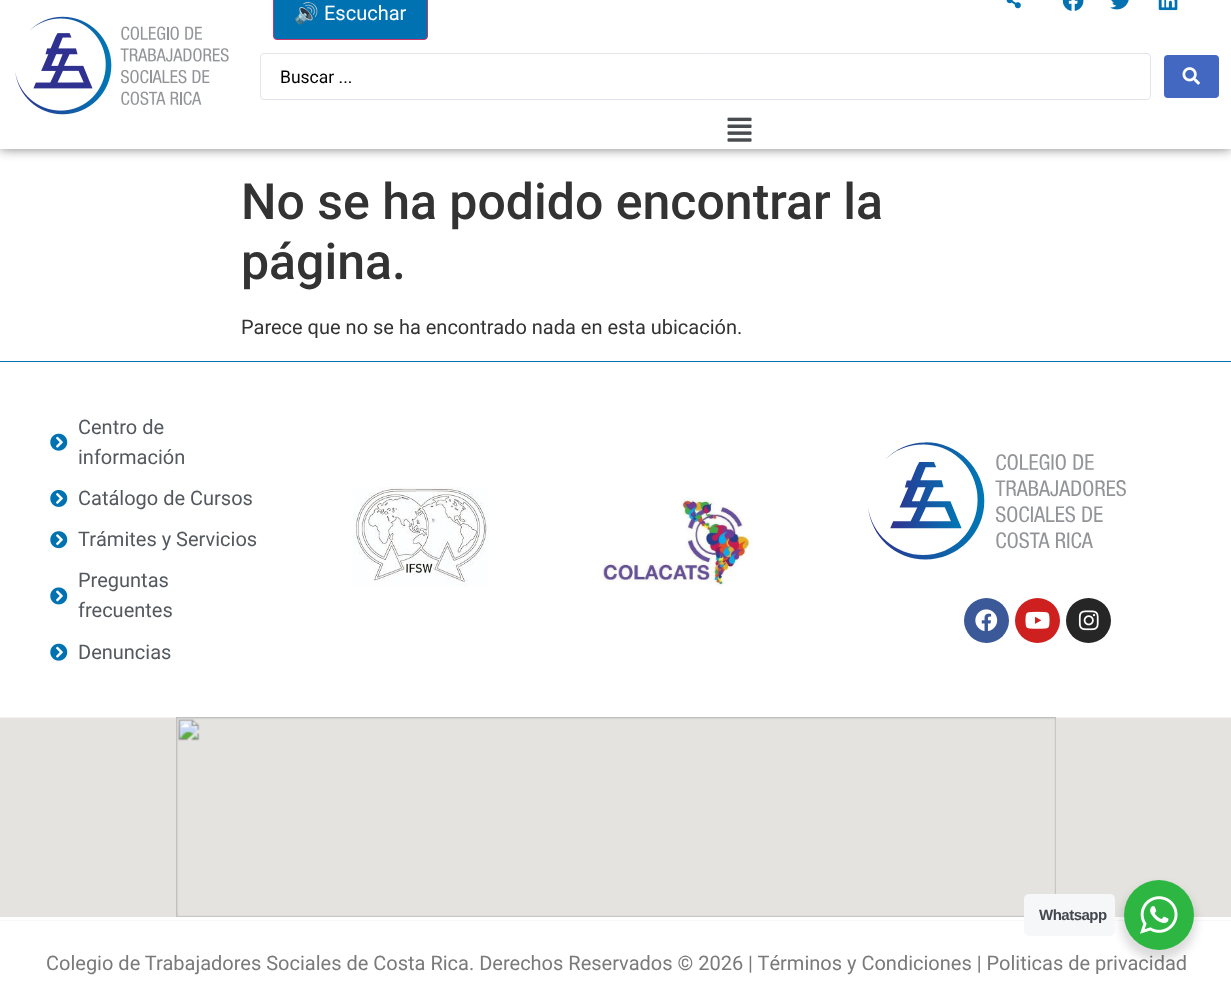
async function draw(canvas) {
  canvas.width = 1231;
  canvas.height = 987;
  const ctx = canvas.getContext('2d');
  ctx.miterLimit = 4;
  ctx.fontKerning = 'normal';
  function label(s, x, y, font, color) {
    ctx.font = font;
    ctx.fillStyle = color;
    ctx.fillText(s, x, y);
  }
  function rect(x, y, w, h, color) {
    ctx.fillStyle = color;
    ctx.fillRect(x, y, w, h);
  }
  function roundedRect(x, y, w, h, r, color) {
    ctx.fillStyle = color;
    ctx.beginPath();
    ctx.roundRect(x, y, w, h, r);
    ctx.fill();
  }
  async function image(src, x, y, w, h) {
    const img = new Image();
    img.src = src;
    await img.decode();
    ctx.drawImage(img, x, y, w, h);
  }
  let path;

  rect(0, 0, 1231, 987, '#fff');
  ctx.save();
  path = new Path2D('M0 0H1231V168H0ZM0-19H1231V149H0Z');
  ctx.clip(path, 'evenodd');
  ctx.fillStyle = '#00000080';
  ctx.filter = 'blur(6px)';
  ctx.beginPath();
  ctx.rect(0, -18, 1231, 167);
  ctx.fill();
  ctx.filter = 'none';
  ctx.restore();
  await image('assets/img1.png', 15, 16, 214, 99);
  ctx.fillStyle = '#0071b1';
  ctx.beginPath();
  ctx.roundRect(273.5, -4.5, 154, 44, 3.5);
  ctx.fill();
  ctx.strokeStyle = '#c36';
  ctx.stroke();
  label('🔊', 294, 20, '20px Noto Color Emoji', '#fff');
  label('Escuchar', 324, 20, '20px Roboto', '#fff');
  await image('assets/img2.png', 1006, 0, 15, 9);
  await image('assets/img3.png', 1062, 0, 22, 11);
  await image('assets/img4.png', 1110, 0, 19, 10);
  await image('assets/img5.png', 1158, 0, 20, 11);
  ctx.beginPath();
  ctx.roundRect(260.5, 53.5, 890, 46, 3.5);
  ctx.strokeStyle = '#e1e5eb';
  ctx.stroke();
  label('Buscar ...', 280, 83, '17.5px Roboto', '#000');
  roundedRect(1164, 55, 55, 43, 4, '#4268c1');
  await image('assets/img6.png', 1182, 67, 18, 18);
  await image('assets/img7.png', 727, 117, 25, 25);
  label('No se ha podido encontrar la', 241, 219, '500 50px Roboto', '#333');
  label('página.', 241, 279, '500 50px Roboto', '#333');
  label('Parece que no se ha encontrado nada en esta ubicación.', 241, 334, '20px Roboto', '#333');
  rect(0, 361, 1231, 1, '#0071b1');
  await image('assets/img8.png', 50, 433, 18, 18);
  label('Centro de', 78, 434, '20px Roboto', '#54595f');
  label('información', 78, 464, '20px Roboto', '#54595f');
  await image('assets/img9.png', 50, 490, 18, 17);
  label('Catálogo de Cursos', 78, 505, '20px Roboto', '#54595f');
  await image('assets/img10.png', 50, 531, 18, 18);
  label('Trámites y Servicios', 78, 546, '20px Roboto', '#54595f');
  await image('assets/img11.png', 50, 587, 18, 18);
  label('Preguntas', 78, 587, '20px Roboto', '#54595f');
  label('frecuentes', 78, 617, '20px Roboto', '#54595f');
  await image('assets/img8.png', 50, 643, 18, 18);
  label('Denuncias', 78, 659, '20px Roboto', '#54595f');
  await image('assets/img12.png', 353, 487, 136, 99);
  await image('assets/img13.png', 602, 497, 151, 89);
  await image('assets/img14.png', 868, 442, 258, 118);
  ctx.fillStyle = '#3b5998';
  ctx.beginPath();
  ctx.arc(986.5, 620.5, 22.5, 0, 2 * Math.PI);
  ctx.fill();
  await image('assets/img15.png', 975, 609, 23, 22);
  ctx.fillStyle = '#cd201f';
  ctx.beginPath();
  ctx.arc(1037.5, 620.5, 22.5, 0, 2 * Math.PI);
  ctx.fill();
  await image('assets/img16.png', 1025, 611, 25, 18);
  ctx.fillStyle = '#262626';
  ctx.beginPath();
  ctx.arc(1088.5, 620.5, 22.5, 0, 2 * Math.PI);
  ctx.fill();
  await image('assets/img17.png', 1078, 610, 21, 21);
  await image('assets/img18.png', 0, 717, 1231, 200);
  rect(0, 920, 1231, 1, '#f7f7f7');
  label('Colegio de Trabajadores Sociales de Costa Rica. Derechos Reservados © 2026 | Términos y Condiciones | Politicas de privacidad', 46, 970, '20px Roboto', '#7a7a7a');
  ctx.fillStyle = '#00000024';
  ctx.filter = 'blur(5px)';
  ctx.beginPath();
  ctx.roundRect(1121, 885, 75, 75, 37.5);
  ctx.fill();
  ctx.filter = 'none';
  roundedRect(1024, 894, 91, 42, 5, '#f5f7f9');
  ctx.letterSpacing = '-0.5px';
  label('Whatsapp', 1039, 920, 'bold 15px Liberation Sans', '#43474e');
  ctx.fillStyle = '#2db742';
  ctx.beginPath();
  ctx.arc(1159, 915, 35, 0, 2 * Math.PI);
  ctx.fill();
  await image('assets/img19.png', 1140, 896, 38, 38);
}

draw(document.querySelector('canvas'));
